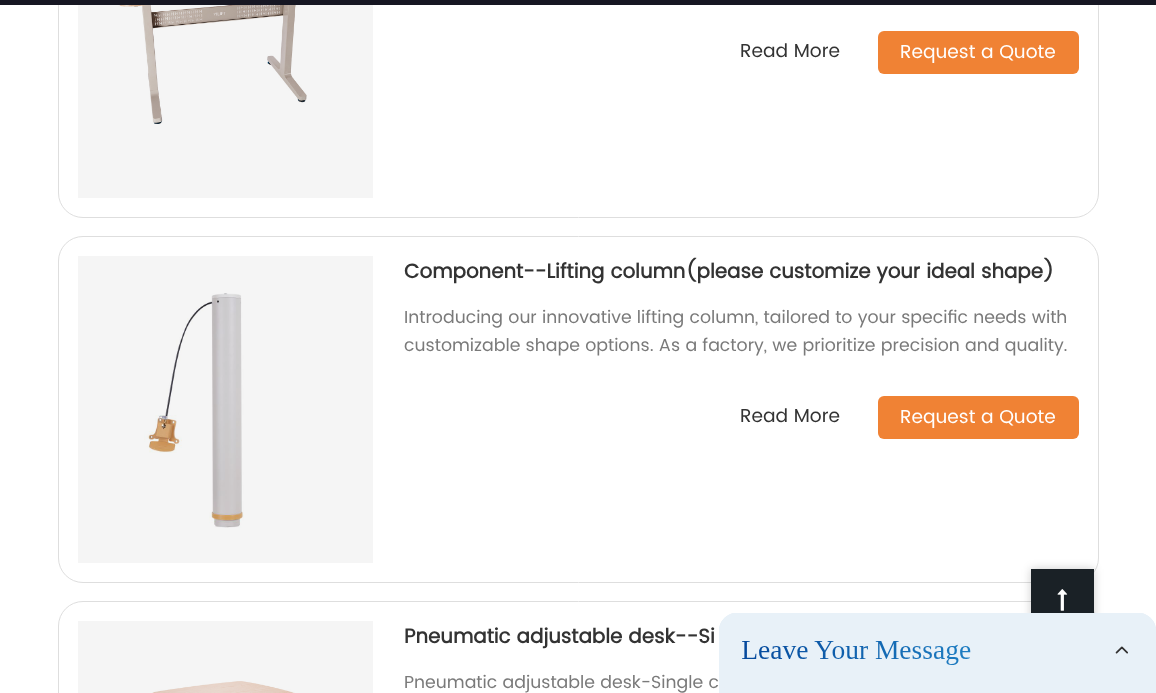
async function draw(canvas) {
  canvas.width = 1156;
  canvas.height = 693;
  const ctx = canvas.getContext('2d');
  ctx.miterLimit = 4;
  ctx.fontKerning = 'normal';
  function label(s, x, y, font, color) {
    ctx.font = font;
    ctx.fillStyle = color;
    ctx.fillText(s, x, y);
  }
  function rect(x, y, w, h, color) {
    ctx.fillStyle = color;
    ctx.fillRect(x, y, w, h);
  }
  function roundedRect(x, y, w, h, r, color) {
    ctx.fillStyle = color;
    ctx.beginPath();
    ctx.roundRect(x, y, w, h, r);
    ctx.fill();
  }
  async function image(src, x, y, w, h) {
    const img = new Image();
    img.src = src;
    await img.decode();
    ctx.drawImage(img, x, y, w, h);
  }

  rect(0, 0, 1156, 693, '#fff');
  rect(78, 5, 295, 193, '#f5f5f5');
  ctx.beginPath();
  ctx.roundRect(58.5, -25.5, 1040, 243, 24.5);
  ctx.strokeStyle = '#dedede';
  ctx.stroke();
  rect(0, 0, 1156, 5, '#161622');
  rect(78, 621, 295, 72, '#f5f5f5');
  rect(78, 256, 295, 307, '#f5f5f5');
  await image('assets/img1.png', 118, 5, 189, 119);
  label('Read More', 740, 57, '18.75px Poppins', '#333');
  roundedRect(878, 31, 201, 43, 6, '#f08234');
  label('Request a Quote', 900, 58, '18.75px Poppins', '#fff');
  ctx.beginPath();
  ctx.roundRect(58.5, 236.5, 1040, 346, 24.5);
  ctx.stroke();
  await image('assets/img2.png', 144, 293, 100, 235);
  label('Component--Lifting column(please customize your ideal shape)', 404, 278, 'bold 20px Poppins', '#333');
  label('Introducing our innovative lifting column, tailored to your specific needs with', 404, 323, '17.5px Poppins', '#7a7a7a');
  label('customizable shape options. As a factory, we prioritize precision and quality.', 404, 351, '17.5px Poppins', '#7a7a7a');
  label('Read More', 740, 422, '18.75px Poppins', '#333');
  roundedRect(878, 396, 201, 43, 6, '#f08234');
  label('Request a Quote', 900, 423, '18.75px Poppins', '#fff');
  ctx.beginPath();
  ctx.roundRect(58.5, 601.5, 1040, 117, 24.5);
  ctx.stroke();
  await image('assets/img3.png', 152, 681, 143, 12);
  label('Pneumatic adjustable desk--Si', 404, 643, 'bold 20px Poppins', '#333');
  label('Pneumatic adjustable desk-Single c', 404, 688, '17.5px Poppins', '#7a7a7a');
  ctx.fillStyle = '#00000033';
  ctx.filter = 'blur(5px)';
  ctx.beginPath();
  ctx.rect(1031, 569, 63, 62);
  ctx.fill();
  ctx.filter = 'none';
  rect(1031, 569, 63, 44, '#1a2126');
  await image('assets/img4.png', 1057, 589, 11, 22);
  await image('assets/img5.png', 719, 613, 437, 80);
}

draw(document.querySelector('canvas'));
